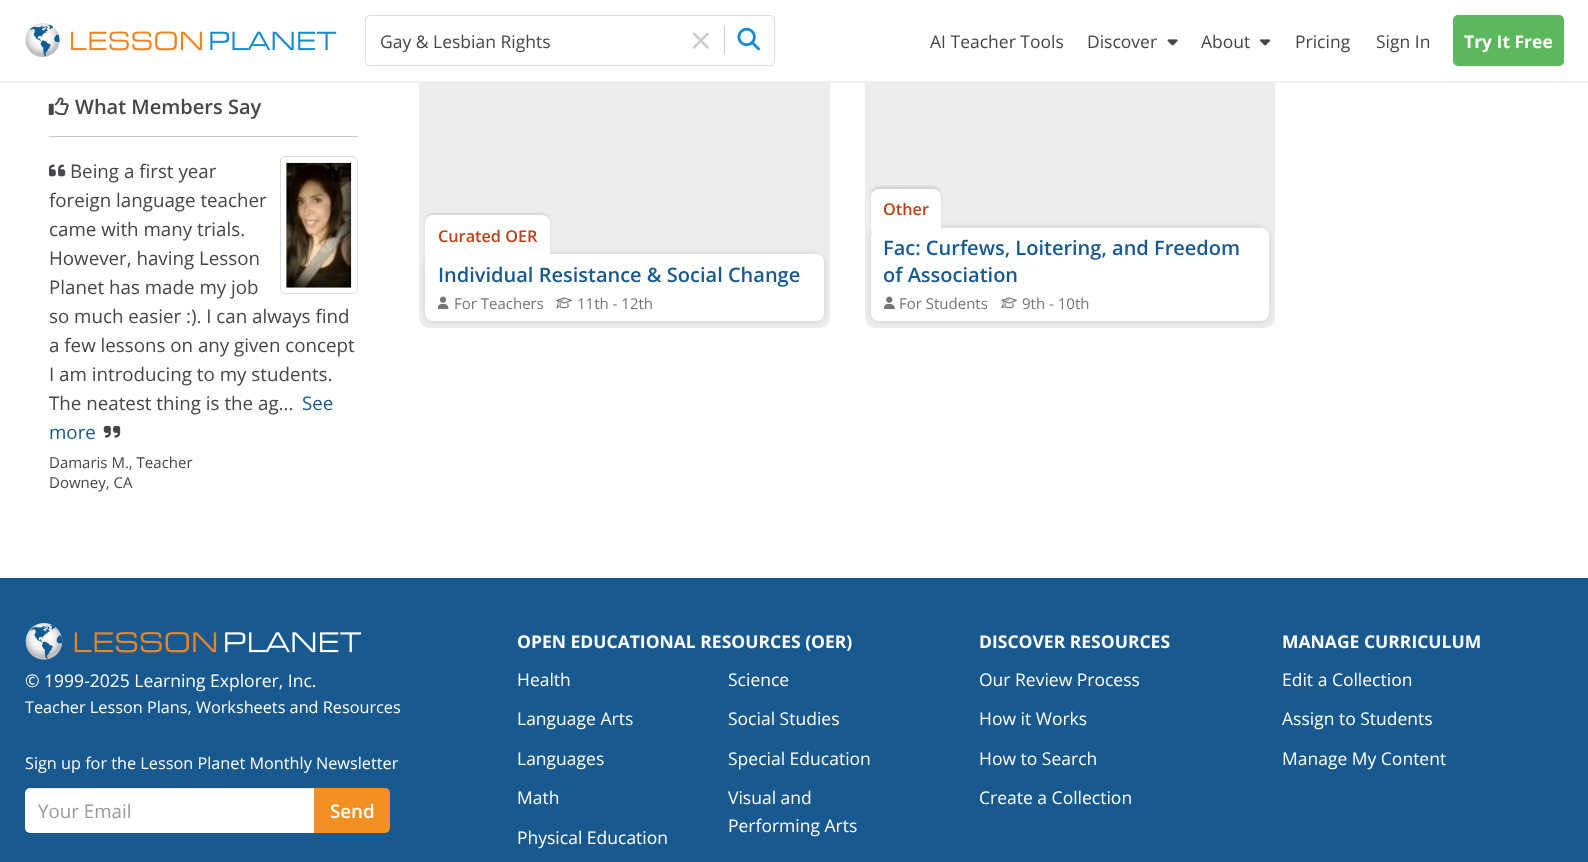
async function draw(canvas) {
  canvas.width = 1588;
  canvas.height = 862;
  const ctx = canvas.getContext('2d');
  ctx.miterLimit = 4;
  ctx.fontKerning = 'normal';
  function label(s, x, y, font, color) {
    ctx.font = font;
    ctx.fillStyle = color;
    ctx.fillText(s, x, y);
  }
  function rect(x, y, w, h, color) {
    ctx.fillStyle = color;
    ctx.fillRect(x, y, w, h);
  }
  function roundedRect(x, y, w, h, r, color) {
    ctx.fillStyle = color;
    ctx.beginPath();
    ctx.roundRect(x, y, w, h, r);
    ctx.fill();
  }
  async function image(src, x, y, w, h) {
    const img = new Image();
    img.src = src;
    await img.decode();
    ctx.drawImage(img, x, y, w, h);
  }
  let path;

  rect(0, 0, 1588, 862, '#fff');
  roundedRect(419, -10, 411, 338, 10, '#ecedef');
  roundedRect(865, -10, 410, 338, 10, '#ecedef');
  ctx.fillStyle = '#f1f1f4';
  path = new Path2D('M0 81V83H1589V1V81Z');
  ctx.fill(path);
  rect(419, 0, 856, 81, '#fff');
  await image('assets/img1.png', 25, 23, 312, 34);
  ctx.beginPath();
  ctx.roundRect(365.5, 15.5, 409, 50, 4.5);
  ctx.strokeStyle = '#dcdce3';
  ctx.stroke();
  label('Gay & Lesbian Rights', 380, 48, '17.5px Open Sans', '#45454a');
  label('×', 690, 54, '38px Open Sans', '#ccc');
  rect(724, 26, 1, 28, '#ccc');
  await image('assets/img2.png', 737, 27, 23, 24);
  label('AI Teacher Tools', 930, 48, '17.5px Open Sans', '#45454a');
  label('Discover', 1087, 48, '17.5px Open Sans', '#45454a');
  await image('assets/img3.png', 1167, 39, 11, 7);
  label('About', 1201, 48, '17.5px Open Sans', '#45454a');
  await image('assets/img4.png', 1260, 39, 11, 7);
  label('Pricing', 1295, 48, '17.5px Open Sans', '#45454a');
  label('Sign In', 1376, 48, '17.5px Open Sans', '#45454a');
  roundedRect(1453, 15, 111, 51, 5, '#5cb85c');
  label('Try It Free', 1464, 48, 'bold 17.5px Open Sans', '#fff');
  await image('assets/img5.png', 48, 97, 21, 18);
  label('What Members Say', 75, 114, '600 20px Open Sans', '#45454a');
  rect(49, 136, 309, 1, '#cccac4');
  await image('assets/img6.png', 49, 164, 17, 13);
  label('Being a first year', 70, 178, '18.75px Open Sans', '#45454a');
  ctx.beginPath();
  ctx.roundRect(280.5, 156.5, 77, 137, 4.5);
  ctx.strokeStyle = '#ddd';
  ctx.stroke();
  await image('assets/img7.png', 286, 162, 66, 126);
  label('foreign language teacher', 49, 207, '18.75px Open Sans', '#45454a');
  label('came with many trials.', 49, 236, '18.75px Open Sans', '#45454a');
  label('However, having Lesson', 49, 265, '18.75px Open Sans', '#45454a');
  label('Planet has made my job', 49, 294, '18.75px Open Sans', '#45454a');
  label('so much easier :). I can always find', 49, 323, '18.75px Open Sans', '#45454a');
  label('a few lessons on any given concept', 49, 352, '18.75px Open Sans', '#45454a');
  label('I am introducing to my students.', 49, 381, '18.75px Open Sans', '#45454a');
  label('The neatest thing is the ag...', 49, 410, '18.75px Open Sans', '#45454a');
  label('See', 302, 410, '18.75px Open Sans', '#18598f');
  label('more', 49, 439, '18.75px Open Sans', '#18598f');
  await image('assets/img8.png', 103, 425, 18, 13);
  label('Damaris M., Teacher', 49, 468, '15px Open Sans', '#45454a');
  label('Downey, CA', 49, 488, '15px Open Sans', '#45454a');
  ctx.fillStyle = '#00000066';
  ctx.filter = 'blur(4.5px)';
  ctx.beginPath();
  ctx.roundRect(429, 258, 391, 60, 4);
  ctx.fill();
  ctx.filter = 'none';
  roundedRect(425, 254, 399, 67, 8, '#fff');
  ctx.fillStyle = '#0000001a';
  ctx.filter = 'blur(1px)';
  ctx.beginPath();
  ctx.roundRect(425, 213, 125, 42, 8);
  ctx.fill();
  ctx.filter = 'none';
  ctx.fillStyle = '#fff';
  ctx.beginPath();
  ctx.roundRect(425, 215, 125, 43, [8, 8, 0, 0]);
  ctx.fill();
  label('Curated OER', 438, 242, '600 16.25px Open Sans', '#b54316');
  label('Individual Resistance & Social Change', 438, 282, '600 20px Open Sans', '#18598f');
  await image('assets/img9.png', 438, 296, 11, 14);
  label('For Teachers', 454, 309, '15px Open Sans', '#757575');
  await image('assets/img10.png', 556, 297, 16, 12);
  label('11th - 12th', 577, 309, '15px Open Sans', '#757575');
  ctx.fillStyle = '#00000066';
  ctx.filter = 'blur(4.5px)';
  ctx.beginPath();
  ctx.roundRect(875, 231, 390, 87, 4);
  ctx.fill();
  ctx.filter = 'none';
  roundedRect(871, 228, 398, 93, 8, '#fff');
  ctx.fillStyle = '#0000001a';
  ctx.filter = 'blur(1px)';
  ctx.beginPath();
  ctx.roundRect(871, 186, 70, 43, 8);
  ctx.fill();
  ctx.filter = 'none';
  ctx.fillStyle = '#fff';
  ctx.beginPath();
  ctx.roundRect(871, 189, 70, 42, [8, 8, 0, 0]);
  ctx.fill();
  label('Other', 883, 215, '600 16.25px Open Sans', '#b54316');
  label('Fac: Curfews, Loitering, and Freedom', 883, 255, '600 20px Open Sans', '#18598f');
  label('of Association', 883, 282, '600 20px Open Sans', '#18598f');
  await image('assets/img11.png', 884, 296, 11, 14);
  label('For Students', 899, 309, '15px Open Sans', '#757575');
  await image('assets/img10.png', 1001, 297, 16, 12);
  label('9th - 10th', 1022, 309, '15px Open Sans', '#757575');
  rect(0, 578, 1588, 284, '#18598f');
  await image('assets/img12.png', 25, 623, 337, 37);
  label('© 1999-2025 Learning Explorer, Inc.', 25, 687, '17.5px Open Sans', '#fff');
  label('Teacher Lesson Plans, Worksheets and Resources', 25, 713, '16.25px Open Sans', '#fff');
  label('Sign up for the Lesson Planet Monthly Newsletter', 25, 769, '16.25px Open Sans', '#fff');
  ctx.beginPath();
  ctx.roundRect(25, 788, 289, 45, [5, 0, 0, 5]);
  ctx.fill();
  ctx.fillStyle = '#00000012';
  path = new Path2D('M30 789H314V788H30C27 788 25 790 25 793V794C25 791 27 789 30 789Z');
  ctx.fill(path);
  label('Your Email', 38, 818, '18.75px Open Sans', '#999');
  ctx.fillStyle = '#f29121';
  ctx.beginPath();
  ctx.roundRect(314, 788, 76, 45, [0, 5, 5, 0]);
  ctx.fill();
  label('Send', 330, 818, '600 18.75px Open Sans', '#fff');
  label('OPEN EDUCATIONAL RESOURCES (OER)', 517, 648, 'bold 17.5px Open Sans', '#fff');
  label('Health', 517, 686, '17.5px Open Sans', '#fff');
  label('Language Arts', 517, 725, '17.5px Open Sans', '#fff');
  label('Languages', 517, 765, '17.5px Open Sans', '#fff');
  label('Math', 517, 804, '17.5px Open Sans', '#fff');
  label('Physical Education', 517, 844, '17.5px Open Sans', '#fff');
  label('Science', 728, 686, '17.5px Open Sans', '#fff');
  label('Social Studies', 728, 725, '17.5px Open Sans', '#fff');
  label('Special Education', 728, 765, '17.5px Open Sans', '#fff');
  label('Visual and', 728, 804, '17.5px Open Sans', '#fff');
  label('Performing Arts', 728, 832, '17.5px Open Sans', '#fff');
  label('DISCOVER RESOURCES', 979, 648, 'bold 17.5px Open Sans', '#fff');
  label('Our Review Process', 979, 686, '17.5px Open Sans', '#fff');
  label('How it Works', 979, 725, '17.5px Open Sans', '#fff');
  label('How to Search', 979, 765, '17.5px Open Sans', '#fff');
  label('Create a Collection', 979, 804, '17.5px Open Sans', '#fff');
  label('MANAGE CURRICULUM', 1282, 648, 'bold 17.5px Open Sans', '#fff');
  label('Edit a Collection', 1282, 686, '17.5px Open Sans', '#fff');
  label('Assign to Students', 1282, 725, '17.5px Open Sans', '#fff');
  label('Manage My Content', 1282, 765, '17.5px Open Sans', '#fff');
}

draw(document.querySelector('canvas'));
